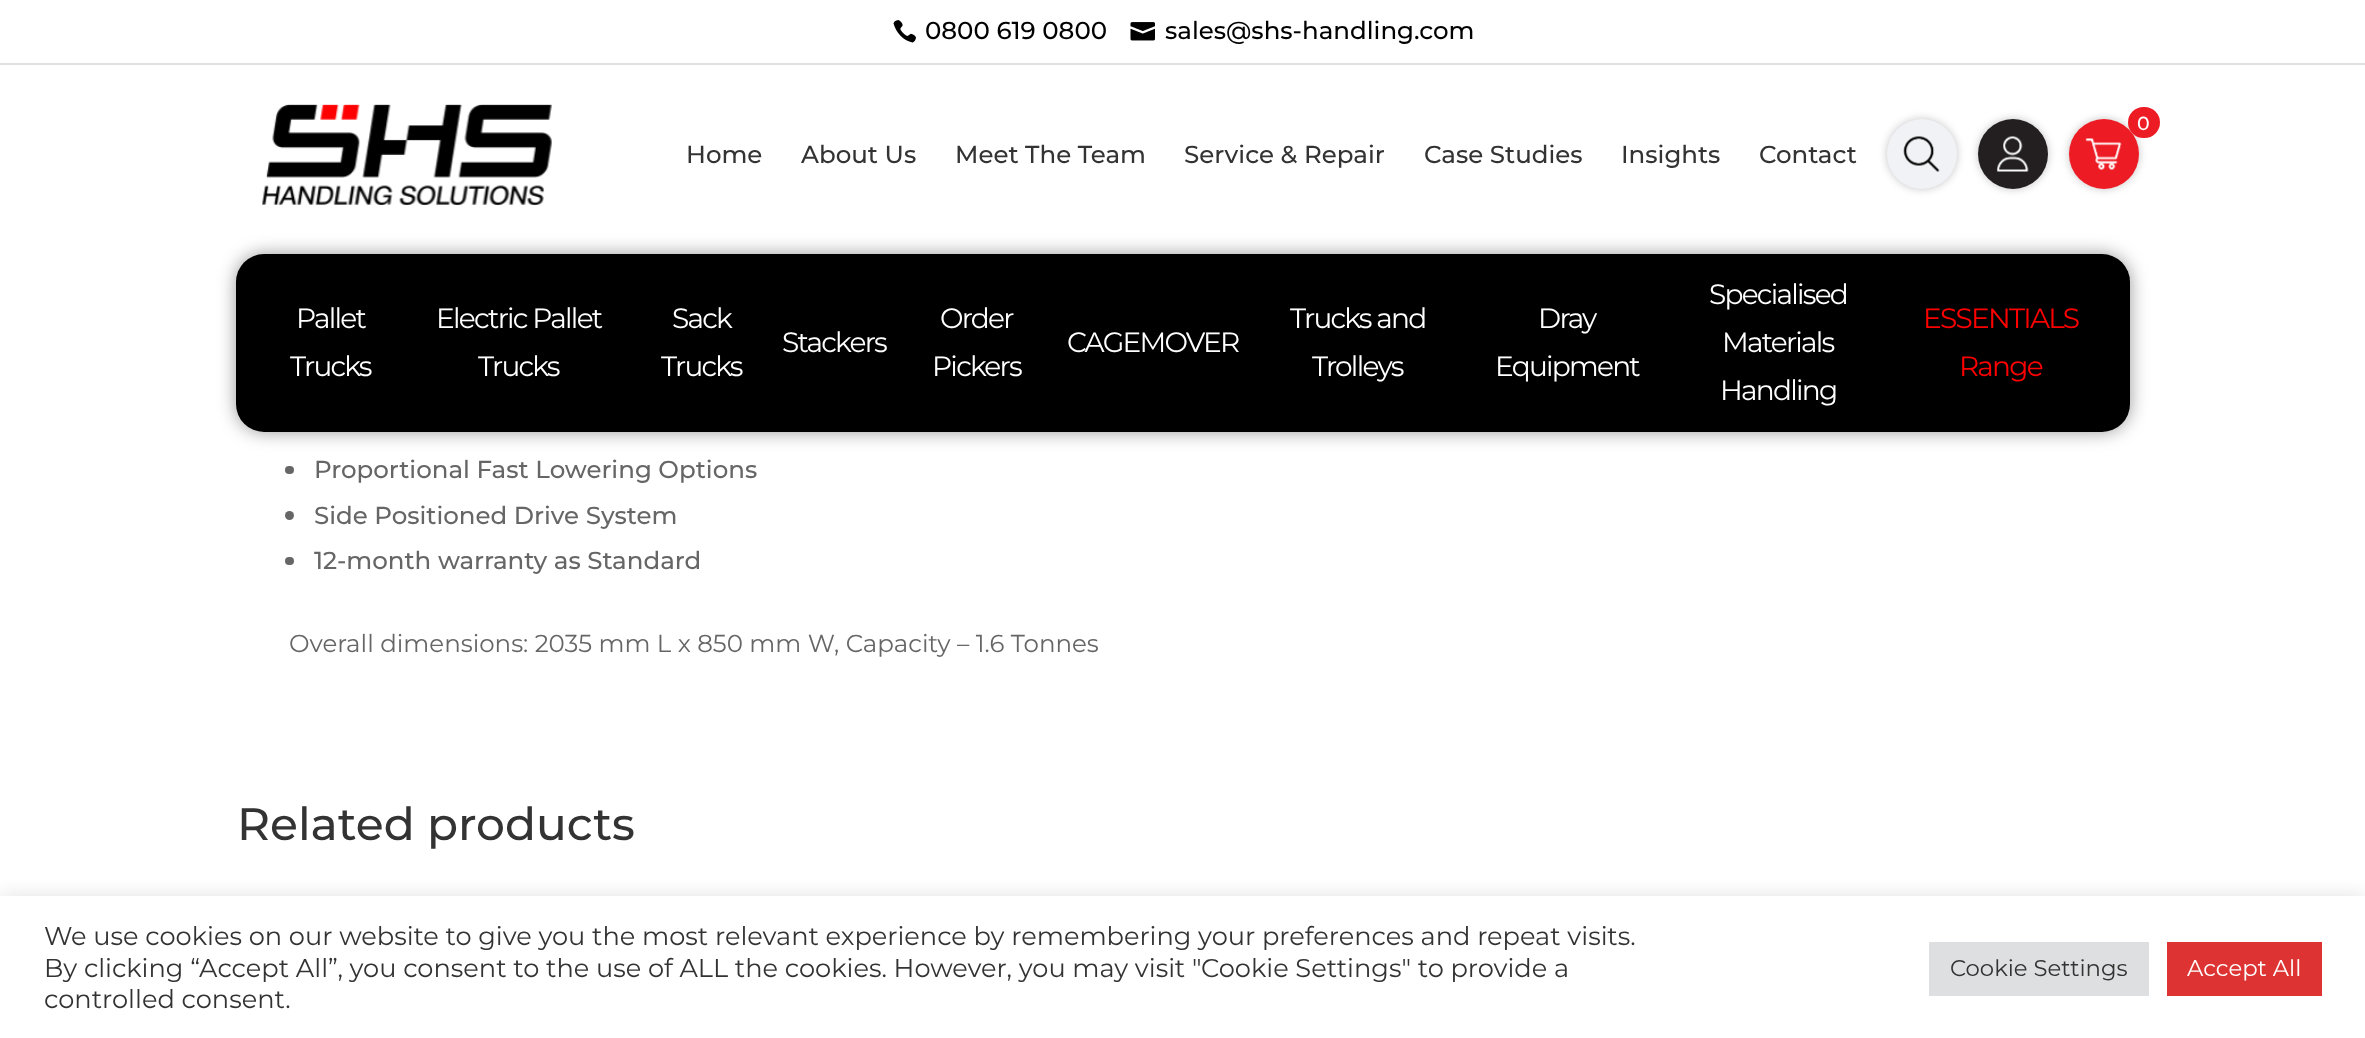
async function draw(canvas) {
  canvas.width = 2365;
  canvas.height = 1038;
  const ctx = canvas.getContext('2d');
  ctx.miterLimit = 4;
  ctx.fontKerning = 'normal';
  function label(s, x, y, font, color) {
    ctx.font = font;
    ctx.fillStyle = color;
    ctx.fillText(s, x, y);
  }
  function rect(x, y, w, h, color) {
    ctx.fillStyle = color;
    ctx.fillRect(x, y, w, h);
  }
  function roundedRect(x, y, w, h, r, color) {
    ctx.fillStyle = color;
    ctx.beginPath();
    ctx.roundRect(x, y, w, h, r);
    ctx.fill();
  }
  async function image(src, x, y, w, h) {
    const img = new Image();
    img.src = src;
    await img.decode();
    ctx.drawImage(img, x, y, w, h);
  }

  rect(0, 0, 2365, 1038, '#fff');
  rect(0, 63, 2365, 2, '#e0e0e0');
  await image('assets/img1.png', 893, 20, 23, 23);
  label('0800 619 0800', 925, 39, '100 24.5px Montserrat', '#000');
  await image('assets/img2.png', 1130, 22, 25, 19);
  label('sales@shs-handling.com', 1165, 39, '100 24.5px Montserrat', '#000');
  await image('assets/img3.png', 262, 104, 290, 102);
  ctx.fillStyle = '#0000003b';
  ctx.filter = 'blur(4.5px)';
  ctx.beginPath();
  ctx.roundRect(1887, 119, 70, 70, 35);
  ctx.fill();
  ctx.filter = 'none';
  ctx.fillStyle = '#f1f2f6';
  ctx.beginPath();
  ctx.arc(1922, 154, 35, 0, 2 * Math.PI);
  ctx.fill();
  await image('assets/img4.png', 1903, 136, 37, 36);
  ctx.fillStyle = '#0000003b';
  ctx.filter = 'blur(4.5px)';
  ctx.beginPath();
  ctx.roundRect(1978, 119, 70, 70, 35);
  ctx.fill();
  ctx.filter = 'none';
  ctx.fillStyle = '#231f20';
  ctx.beginPath();
  ctx.arc(2013, 154, 35, 0, 2 * Math.PI);
  ctx.fill();
  await image('assets/img5.png', 1996, 136, 33, 36);
  ctx.fillStyle = '#0000003b';
  ctx.filter = 'blur(4.5px)';
  ctx.beginPath();
  ctx.roundRect(2069, 119, 70, 70, 35);
  ctx.fill();
  ctx.filter = 'none';
  ctx.fillStyle = '#ed1c24';
  ctx.beginPath();
  ctx.arc(2104, 154, 35, 0, 2 * Math.PI);
  ctx.fill();
  roundedRect(2128, 107, 32, 31, 15.5, '#ed1c24');
  label('0', 2137, 130, '100 19px Montserrat', '#fff');
  await image('assets/img6.png', 2085, 138, 37, 32);
  label('Home', 686, 163, '100 24.5px Montserrat', '#333');
  label('About Us', 801, 163, '100 24.5px Montserrat', '#333');
  label('Meet The Team', 955, 163, '100 24.5px Montserrat', '#333');
  label('Service & Repair', 1184, 163, '100 24.5px Montserrat', '#333');
  label('Case Studies', 1424, 163, '100 24.5px Montserrat', '#333');
  label('Insights', 1621, 163, '100 24.5px Montserrat', '#333');
  label('Contact', 1759, 163, '100 24.5px Montserrat', '#333');
  ctx.fillStyle = '#00000066';
  ctx.filter = 'blur(9px)';
  ctx.beginPath();
  ctx.roundRect(236, 254, 1894, 178, 28);
  ctx.fill();
  ctx.filter = 'none';
  roundedRect(236, 254, 1894, 178, 28, '#000');
  ctx.letterSpacing = '-1.75px';
  label('Pallet', 296, 328, '100 28px "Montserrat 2"', '#fff');
  label('Trucks', 290, 376, '100 28px "Montserrat 2"', '#fff');
  label('Electric Pallet', 436, 328, '100 28px "Montserrat 2"', '#fff');
  label('Trucks', 478, 376, '100 28px "Montserrat 2"', '#fff');
  label('Sack', 672, 328, '100 28px "Montserrat 2"', '#fff');
  label('Trucks', 661, 376, '100 28px "Montserrat 2"', '#fff');
  label('Stackers', 782, 352, '100 28px "Montserrat 2"', '#fff');
  label('Order', 940, 328, '100 28px "Montserrat 2"', '#fff');
  label('Pickers', 932, 376, '100 28px "Montserrat 2"', '#fff');
  label('CAGEMOVER', 1067, 352, '100 28px "Montserrat 2"', '#fff');
  label('Trucks and', 1290, 328, '100 28px "Montserrat 2"', '#fff');
  label('Trolleys', 1312, 376, '100 28px "Montserrat 2"', '#fff');
  label('Dray', 1538, 328, '100 28px "Montserrat 2"', '#fff');
  label('Equipment', 1495, 376, '100 28px "Montserrat 2"', '#fff');
  label('Specialised', 1709, 304, '100 28px "Montserrat 2"', '#fff');
  label('Materials', 1722, 352, '100 28px "Montserrat 2"', '#fff');
  label('Handling', 1720, 400, '100 28px "Montserrat 2"', '#fff');
  label('ESSENTIALS', 1923, 328, '100 28px "Montserrat 2"', '#f00');
  label('Range', 1959, 376, '100 28px "Montserrat 2"', '#f00');
  roundedRect(285, 466, 9, 8, 4, '#666');
  ctx.letterSpacing = '0px';
  label('Proportional Fast Lowering Options', 314, 478, '100 24.5px Montserrat', '#666');
  ctx.beginPath();
  ctx.arc(289.5, 515.5, 4.5, 0, 2 * Math.PI);
  ctx.fill();
  label('Side Positioned Drive System', 314, 524, '100 24.5px Montserrat', '#666');
  roundedRect(285, 557, 9, 8, 4, '#666');
  label('12-month warranty as Standard', 314, 569, '100 24.5px Montserrat', '#666');
  label('Overall dimensions: 2035 mm L x 850 mm W, Capacity – 1.6 Tonnes', 289, 652, '100 24.5px "Montserrat 2"', '#666');
  label('Related products', 237, 840, '100 45.5px Montserrat', '#333');
  ctx.save();
  ctx.beginPath();
  ctx.rect(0, 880, 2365, 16);
  ctx.clip();
  ctx.fillStyle = '#acabab4d';
  ctx.filter = 'blur(9px)';
  ctx.beginPath();
  ctx.rect(0, 894, 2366, 144);
  ctx.fill();
  ctx.filter = 'none';
  ctx.restore();
  label('We use cookies on our website to give you the most relevant experience by remembering your preferences and repeat visits.', 44, 945, '100 25.67px "Montserrat 2"', '#333');
  label('By clicking “Accept All”, you consent to the use of ALL the cookies. However, you may visit "Cookie Settings" to provide a', 44, 977, '100 25.67px "Montserrat 2"', '#333');
  label('controlled consent.', 44, 1008, '100 25.67px "Montserrat 2"', '#333');
  rect(1929, 942, 220, 54, '#dedfe0');
  label('Cookie Settings', 1950, 976, '100 22.75px "Montserrat 2"', '#333');
  rect(2167, 942, 155, 54, '#d33');
  label('Accept All', 2187, 976, '100 22.75px "Montserrat 2"', '#fff');
}

draw(document.querySelector('canvas'));
